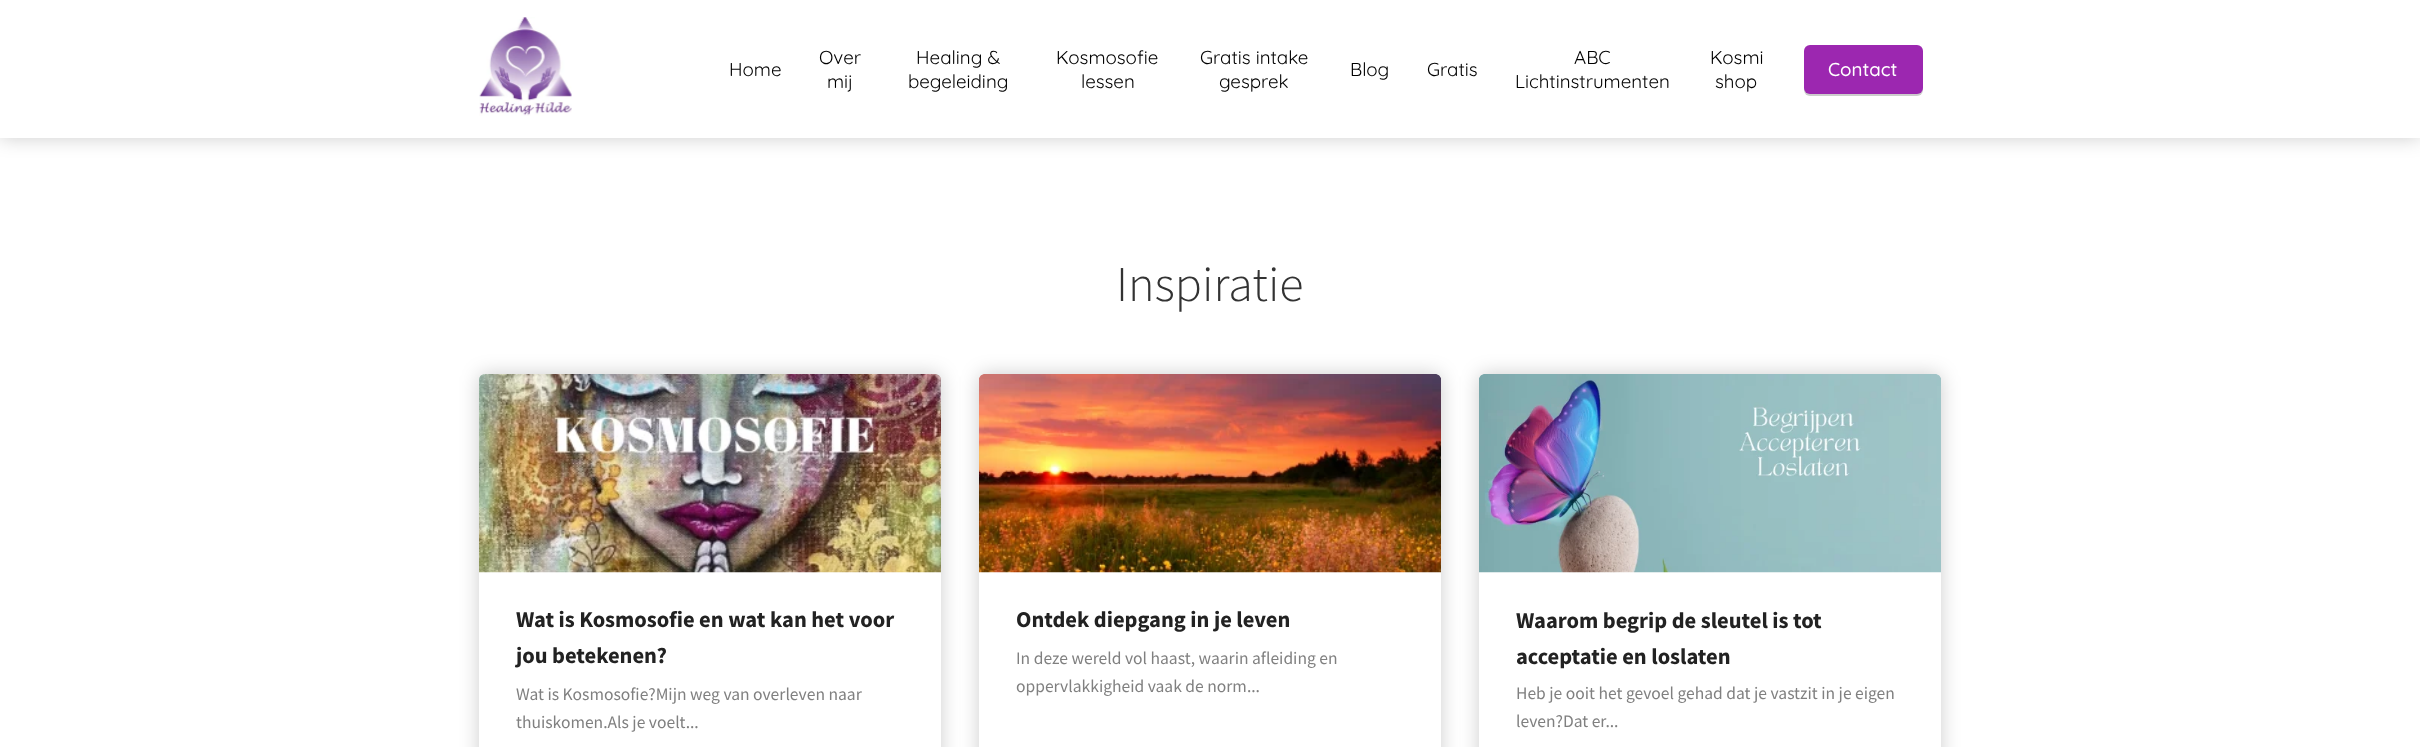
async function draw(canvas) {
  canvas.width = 2420;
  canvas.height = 747;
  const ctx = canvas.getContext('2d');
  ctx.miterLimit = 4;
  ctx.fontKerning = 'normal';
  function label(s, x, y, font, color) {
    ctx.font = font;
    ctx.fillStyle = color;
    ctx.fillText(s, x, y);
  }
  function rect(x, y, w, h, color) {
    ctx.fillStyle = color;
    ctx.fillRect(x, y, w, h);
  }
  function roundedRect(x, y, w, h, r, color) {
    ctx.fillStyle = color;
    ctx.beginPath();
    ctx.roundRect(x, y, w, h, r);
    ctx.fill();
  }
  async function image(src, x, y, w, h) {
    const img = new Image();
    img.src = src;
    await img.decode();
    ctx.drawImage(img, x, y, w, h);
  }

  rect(0, 0, 2420, 747, '#fff');
  ctx.fillStyle = '#00000033';
  ctx.filter = 'blur(9.5px)';
  ctx.beginPath();
  ctx.rect(0, 0, 2420, 138);
  ctx.fill();
  ctx.filter = 'none';
  rect(0, 0, 2420, 138, '#fff');
  await image('assets/img1.png', 479, 17, 93, 99);
  label('Home', 729, 76, '18.75px Quicksand', '#000');
  label('Over', 819, 64, '18.75px Quicksand', '#000');
  label('mij', 827, 88, '18.75px Quicksand', '#000');
  label('Healing &', 916, 64, '18.75px Quicksand', '#000');
  label('begeleiding', 908, 88, '18.75px Quicksand', '#000');
  label('Kosmosofie', 1056, 64, '18.75px Quicksand', '#000');
  label('lessen', 1081, 88, '18.75px Quicksand', '#000');
  label('Gratis intake', 1200, 64, '18.75px Quicksand', '#000');
  label('gesprek', 1219, 88, '18.75px Quicksand', '#000');
  label('Blog', 1350, 76, '18.75px Quicksand', '#000');
  label('Gratis', 1427, 76, '18.75px Quicksand', '#000');
  label('ABC', 1574, 64, '18.75px Quicksand', '#000');
  label('Lichtinstrumenten', 1515, 88, '18.75px Quicksand', '#000');
  label('Kosmi', 1710, 64, '18.75px Quicksand', '#000');
  label('shop', 1715, 88, '18.75px Quicksand', '#000');
  ctx.fillStyle = '#00000033';
  ctx.filter = 'blur(0.5px)';
  ctx.beginPath();
  ctx.roundRect(1804, 48, 119, 48, 6);
  ctx.fill();
  ctx.filter = 'none';
  roundedRect(1804, 45, 119, 49, 6, '#9c27b0');
  label('Contact', 1828, 76, '500 18.75px Quicksand', '#fff');
  label('Inspiratie', 1116, 301, '300 50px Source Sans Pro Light', '#333');
  ctx.fillStyle = '#00000033';
  ctx.filter = 'blur(9.5px)';
  ctx.beginPath();
  ctx.roundRect(479, 374, 462, 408, 6);
  ctx.fill();
  ctx.filter = 'none';
  roundedRect(479, 374, 462, 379, 6, '#fff');
  await image('assets/img2.png', 479, 374, 462, 199);
  label('Wat is Kosmosofie en wat kan het voor', 516, 627, 'bold 22.5px Source Sans Pro', '#222');
  label('jou betekenen?', 516, 663, 'bold 22.5px Source Sans Pro', '#222');
  label('Wat is Kosmosofie?Mijn weg van overleven naar', 516, 700, '17.5px Source Sans Pro', '#808080');
  label('thuiskomen.Als je voelt...', 516, 728, '17.5px Source Sans Pro', '#808080');
  ctx.fillStyle = '#00000033';
  ctx.filter = 'blur(9.5px)';
  ctx.beginPath();
  ctx.roundRect(979, 374, 462, 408, 6);
  ctx.fill();
  ctx.filter = 'none';
  roundedRect(979, 374, 462, 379, 6, '#fff');
  await image('assets/img3.png', 979, 374, 462, 199);
  label('Ontdek diepgang in je leven', 1016, 627, 'bold 22.5px Source Sans Pro', '#222');
  label('In deze wereld vol haast, waarin afleiding en', 1016, 664, '17.5px Source Sans Pro', '#808080');
  label('oppervlakkigheid vaak de norm...', 1016, 692, '17.5px Source Sans Pro', '#808080');
  ctx.fillStyle = '#00000033';
  ctx.filter = 'blur(9.5px)';
  ctx.beginPath();
  ctx.roundRect(1479, 374, 462, 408, 6);
  ctx.fill();
  ctx.filter = 'none';
  roundedRect(1479, 374, 462, 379, 6, '#fff');
  await image('assets/img4.png', 1479, 374, 462, 199);
  label('Waarom begrip de sleutel is tot', 1516, 628, 'bold 22.5px Source Sans Pro', '#222');
  label('acceptatie en loslaten', 1516, 664, 'bold 22.5px Source Sans Pro', '#222');
  label('Heb je ooit het gevoel gehad dat je vastzit in je eigen', 1516, 699, '17.5px Source Sans Pro', '#808080');
  label('leven?Dat er...', 1516, 727, '17.5px Source Sans Pro', '#808080');
}

draw(document.querySelector('canvas'));
